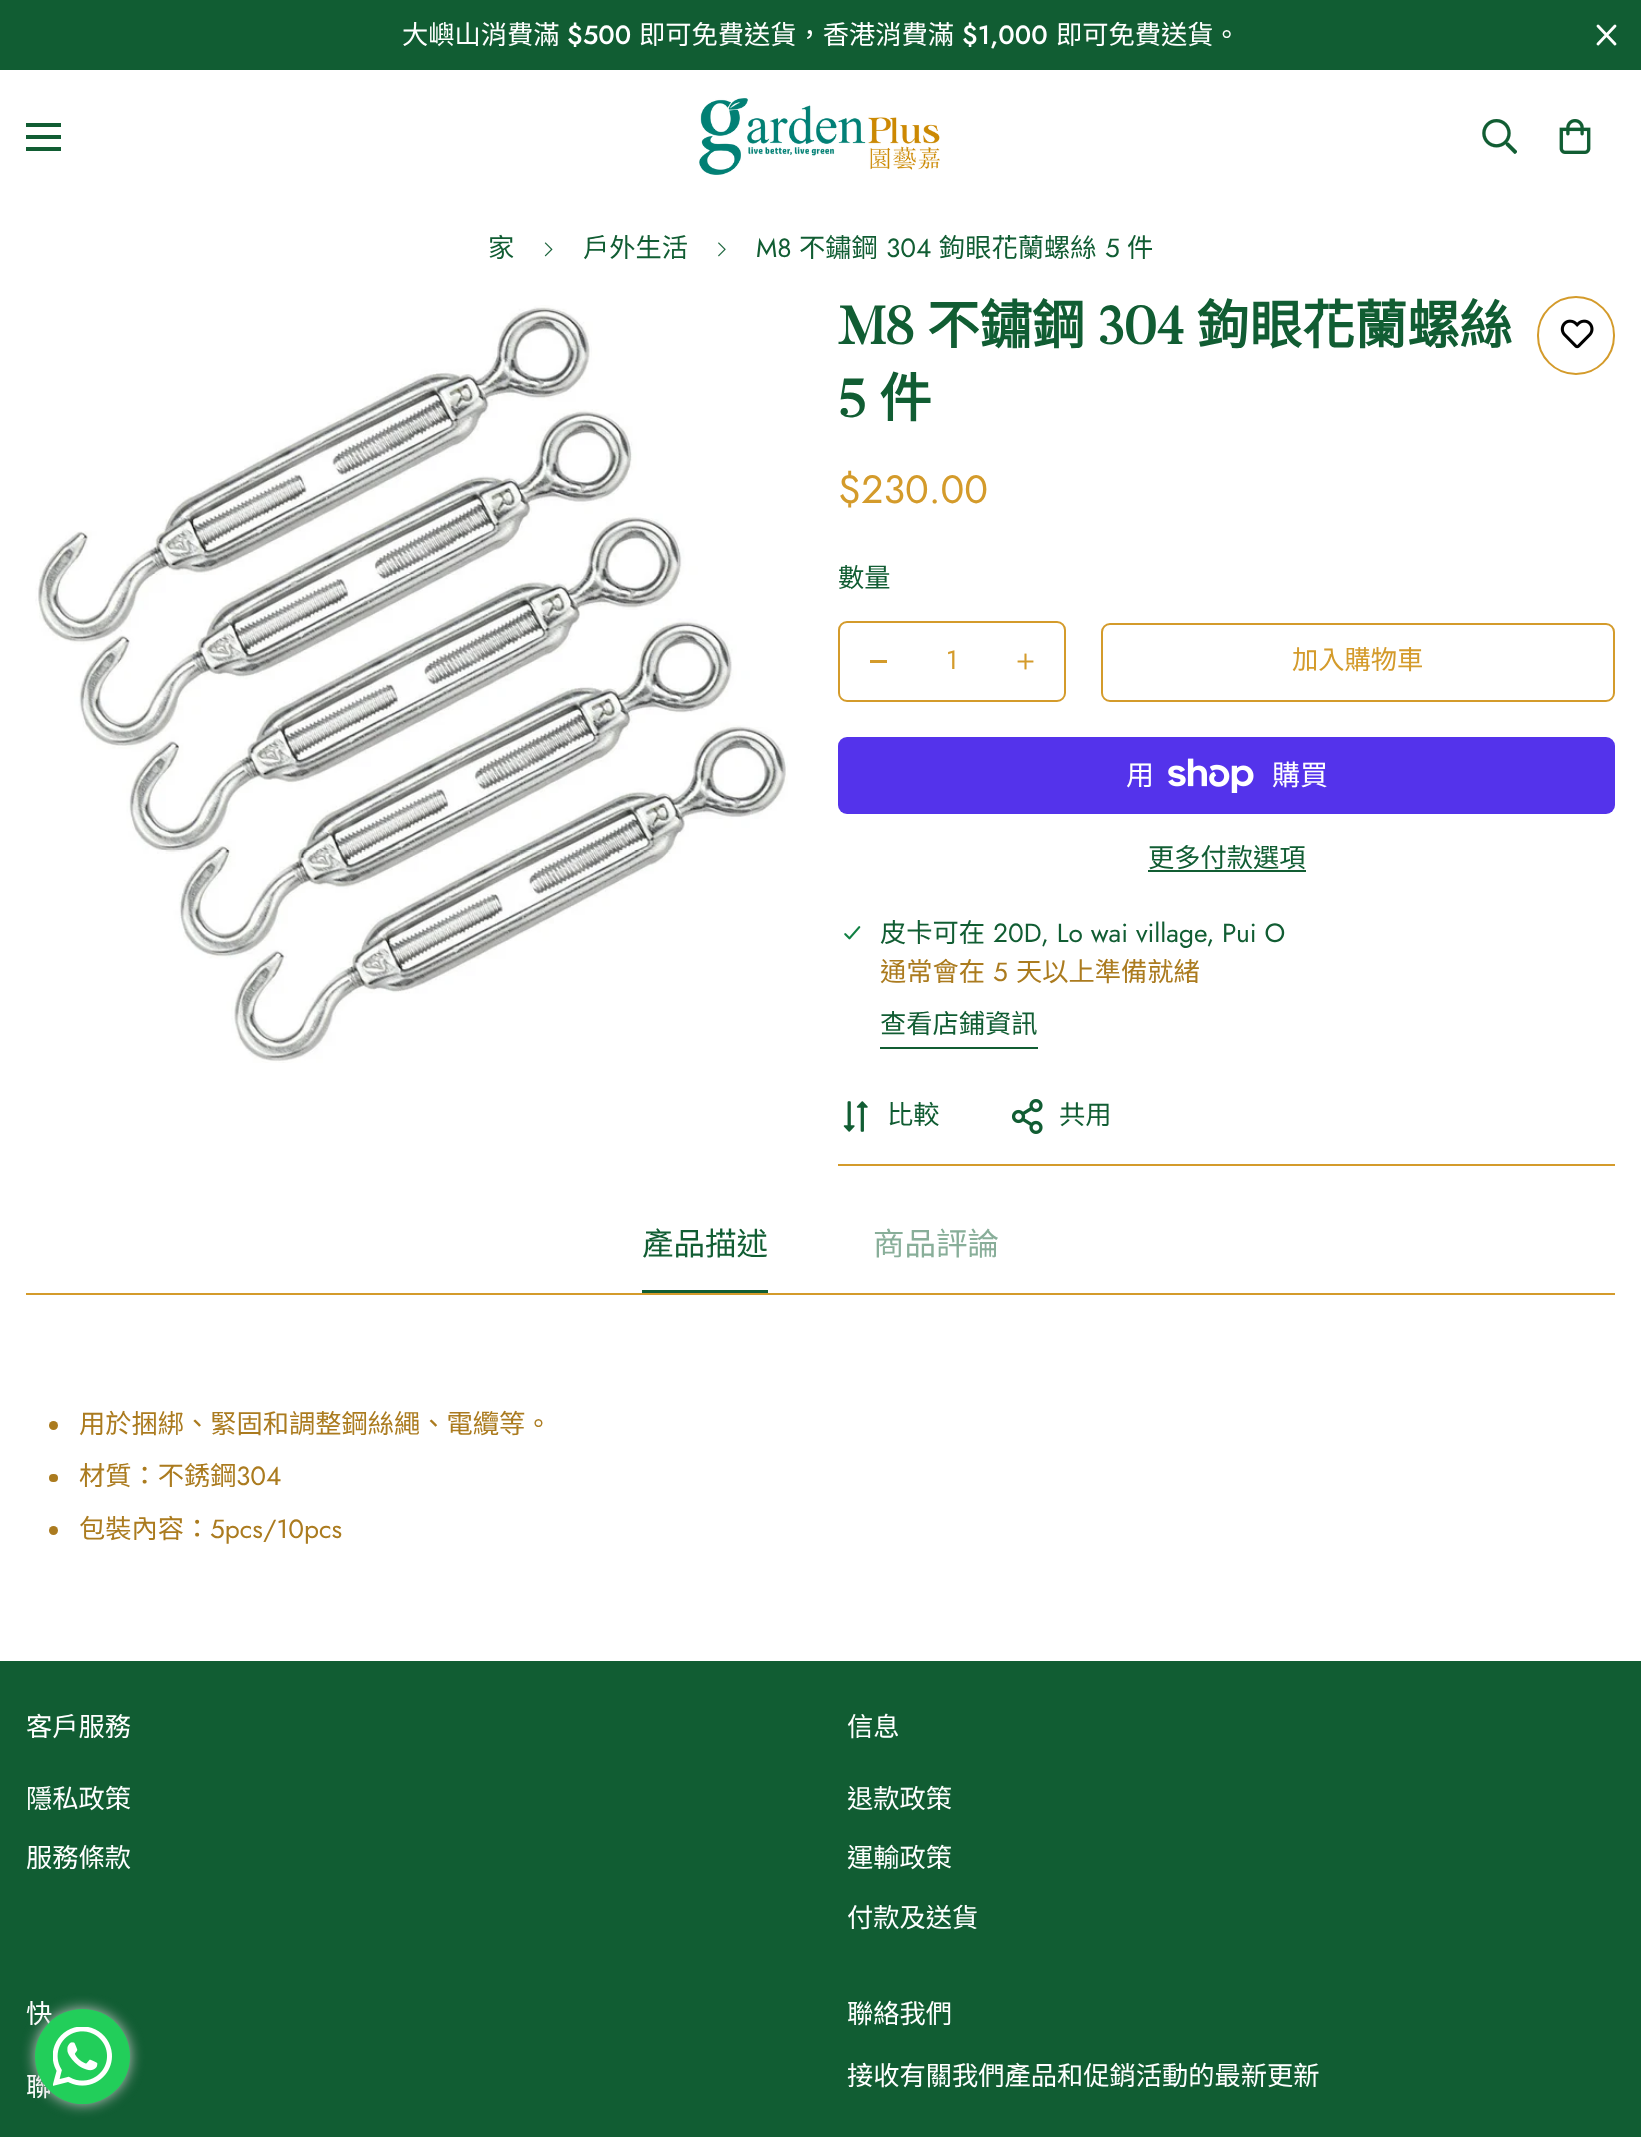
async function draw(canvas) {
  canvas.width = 1641;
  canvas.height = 2137;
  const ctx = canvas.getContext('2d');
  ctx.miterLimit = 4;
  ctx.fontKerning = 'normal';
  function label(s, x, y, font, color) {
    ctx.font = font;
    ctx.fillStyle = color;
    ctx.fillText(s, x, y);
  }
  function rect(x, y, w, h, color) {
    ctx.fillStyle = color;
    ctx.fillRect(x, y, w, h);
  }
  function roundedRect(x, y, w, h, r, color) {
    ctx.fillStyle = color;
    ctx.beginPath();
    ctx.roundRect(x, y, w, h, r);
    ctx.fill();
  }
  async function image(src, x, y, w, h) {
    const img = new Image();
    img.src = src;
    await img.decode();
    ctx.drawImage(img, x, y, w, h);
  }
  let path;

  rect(0, 0, 1641, 2137, '#fff');
  rect(0, 0, 1641, 70, '#115d33');
  label('大嶼山消費滿', 402, 44, '26.25px Noto Sans CJK TC', '#fff');
  label('$500', 567, 44, '500 26.25px Jost', '#fff');
  label('即可免費送貨，香港消費滿', 639, 44, '26.25px Noto Sans CJK TC', '#fff');
  label('$1,000', 962, 44, '500 26.25px Jost', '#fff');
  label('即可免費送貨。', 1056, 44, '26.25px Noto Sans CJK TC', '#fff');
  path = new Path2D('M1598 44L1615 26M1598 26L1615 44');
  ctx.strokeStyle = '#fff';
  ctx.lineWidth = 2.9;
  ctx.lineCap = 'round';
  ctx.lineJoin = 'round';
  ctx.stroke(path);
  rect(26, 135, 35, 4, '#115d33');
  rect(26, 123, 35, 4, '#115d33');
  rect(26, 147, 35, 4, '#115d33');
  await image('assets/img1.png', 699, 98, 241, 77);
  await image('assets/img2.png', 1482, 119, 35, 35);
  await image('assets/img3.png', 1559, 119, 32, 35);
  label('家', 488, 257, '26.25px Noto Sans CJK TC', '#115d33');
  await image('assets/img4.png', 544, 242, 9, 15);
  label('戶外生活', 583, 257, '26.25px Noto Sans CJK TC', '#115d33');
  await image('assets/img5.png', 718, 242, 8, 15);
  label('M8', 756, 257, '26.25px Jost', '#115d33');
  label('不鏽鋼', 799, 257, '26.25px Noto Sans CJK TC', '#115d33');
  label('304', 886, 257, '26.25px Jost', '#115d33');
  label('鉤眼花蘭螺絲', 939, 257, '26.25px Noto Sans CJK TC', '#115d33');
  label('5', 1105, 257, '26.25px Jost', '#115d33');
  label('件', 1127, 257, '26.25px Noto Sans CJK TC', '#115d33');
  await image('assets/img6.png', 35, 305, 753, 758);
  label('M8', 838, 344, 'bold 52.5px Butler', '#115d33');
  label('不鏽鋼', 927, 344, 'bold 52.5px Noto Sans CJK TC', '#115d33');
  label('304', 1098, 344, 'bold 52.5px Butler', '#115d33');
  label('鉤眼花蘭螺絲', 1197, 344, 'bold 52.5px Noto Sans CJK TC', '#115d33');
  label('5', 838, 417, 'bold 52.5px Butler', '#115d33');
  label('件', 879, 417, 'bold 52.5px Noto Sans CJK TC', '#115d33');
  ctx.beginPath();
  ctx.roundRect(1538, 297, 76, 77, 38);
  ctx.strokeStyle = '#d49b2b';
  ctx.lineWidth = 2;
  ctx.lineJoin = 'miter';
  ctx.stroke();
  await image('assets/img7.png', 1560, 319, 34, 30);
  label('$230.00', 838, 503, '39.5px Jost', '#d49b2b');
  label('數量', 838, 587, '26.25px Noto Sans CJK TC', '#115d33');
  ctx.beginPath();
  ctx.roundRect(839, 622, 226, 79, 8);
  ctx.stroke();
  rect(870, 660, 17, 3, '#d49b2b');
  label('1', 946, 669, '26.25px Jost', '#d49b2b');
  await image('assets/img8.png', 1017, 653, 17, 17);
  ctx.beginPath();
  ctx.roundRect(1102, 624, 512, 77, 8);
  ctx.stroke();
  label('加入購物車', 1292, 669, '26.25px Noto Sans CJK TC', '#d49b2b');
  roundedRect(838, 737, 777, 77, 9, '#5433eb');
  label('用', 1126, 785, '28px Noto Sans CJK TC', '#fff');
  await image('assets/img9.png', 1168, 758, 86, 35);
  label('購買', 1272, 785, '28px Noto Sans CJK TC', '#fff');
  label('更多付款選項', 1148, 867, '26.25px Noto Sans CJK TC', '#115d33');
  rect(1148, 870, 158, 2, '#115d33');
  await image('assets/img10.png', 844, 926, 17, 14);
  label('皮卡可在', 880, 942, '26.25px Noto Sans CJK TC', '#115d33');
  label('20D, Lo wai village, Pui O', 993, 942, '26.25px Jost', '#115d33');
  label('通常會在', 880, 981, '26.25px Noto Sans CJK TC', '#ab7b1f');
  label('5', 993, 981, '26.25px Jost', '#ab7b1f');
  label('天以上準備就緒', 1016, 981, '26.25px Noto Sans CJK TC', '#ab7b1f');
  label('查看店鋪資訊', 880, 1033, '26.25px Noto Sans CJK TC', '#115d33');
  rect(880, 1047, 158, 2, '#115d33');
  rect(838, 1164, 777, 2, '#d49b2b');
  await image('assets/img11.png', 843, 1101, 25, 31);
  label('比較', 887, 1124, '26.25px Noto Sans CJK TC', '#115d33');
  await image('assets/img12.png', 1011, 1099, 32, 35);
  label('共用', 1059, 1124, '26.25px Noto Sans CJK TC', '#115d33');
  rect(26, 1293, 1589, 2, '#d49b2b');
  label('產品描述', 642, 1255, '31.5px Noto Sans CJK TC', '#115d33');
  rect(642, 1290, 126, 3, '#115d33');
  label('商品評論', 873, 1255, '31.5px Noto Sans CJK TC', '#88ae99');
  ctx.fillStyle = '#ab7b1f';
  ctx.beginPath();
  ctx.arc(53.5, 1425.5, 4.5, 0, 2 * Math.PI);
  ctx.fill();
  label('用於捆綁、緊固和調整鋼絲繩、電纜等。', 79, 1433, '26.25px Noto Sans CJK TC', '#ab7b1f');
  roundedRect(49, 1474, 9, 8, 4, '#ab7b1f');
  label('材質：不銹鋼', 79, 1485, '26.25px Noto Sans CJK TC', '#ab7b1f');
  label('304', 236, 1485, '26.25px Jost', '#ab7b1f');
  ctx.beginPath();
  ctx.arc(53.5, 1530.5, 4.5, 0, 2 * Math.PI);
  ctx.fill();
  label('包裝內容：', 79, 1538, '26.25px Noto Sans CJK TC', '#ab7b1f');
  label('5pcs/10pcs', 210, 1538, '26.25px Jost', '#ab7b1f');
  rect(0, 1661, 1641, 476, '#115d33');
  label('客戶服務', 26, 1736, '26.25px Noto Sans CJK TC', '#fff');
  label('隱私政策', 26, 1808, '26.25px Noto Sans CJK TC', '#fff');
  label('服務條款', 26, 1867, '26.25px Noto Sans CJK TC', '#fff');
  label('信息', 847, 1736, '26.25px Noto Sans CJK TC', '#fff');
  label('退款政策', 847, 1808, '26.25px Noto Sans CJK TC', '#fff');
  label('運輸政策', 847, 1867, '26.25px Noto Sans CJK TC', '#fff');
  label('付款及送貨', 847, 1927, '26.25px Noto Sans CJK TC', '#fff');
  label('快', 26, 2023, '26.25px Noto Sans CJK TC', '#fff');
  label('聯', 26, 2096, '26.25px Noto Sans CJK TC', '#fff');
  label('聯絡我們', 847, 2023, '26.25px Noto Sans CJK TC', '#fff');
  label('接收有關我們產品和促銷活動的最新更新', 847, 2085, '26.25px Noto Sans CJK TC', '#fff');
  ctx.fillStyle = '#c2c2c2';
  ctx.filter = 'blur(7px)';
  ctx.beginPath();
  ctx.roundRect(35, 2009, 95, 95, 47.5);
  ctx.fill();
  ctx.filter = 'none';
  ctx.fillStyle = '#22ce5a';
  ctx.beginPath();
  ctx.arc(82.5, 2056.5, 47.5, 0, 2 * Math.PI);
  ctx.fill();
  await image('assets/img13.png', 53, 2027, 59, 59);
}

draw(document.querySelector('canvas'));
